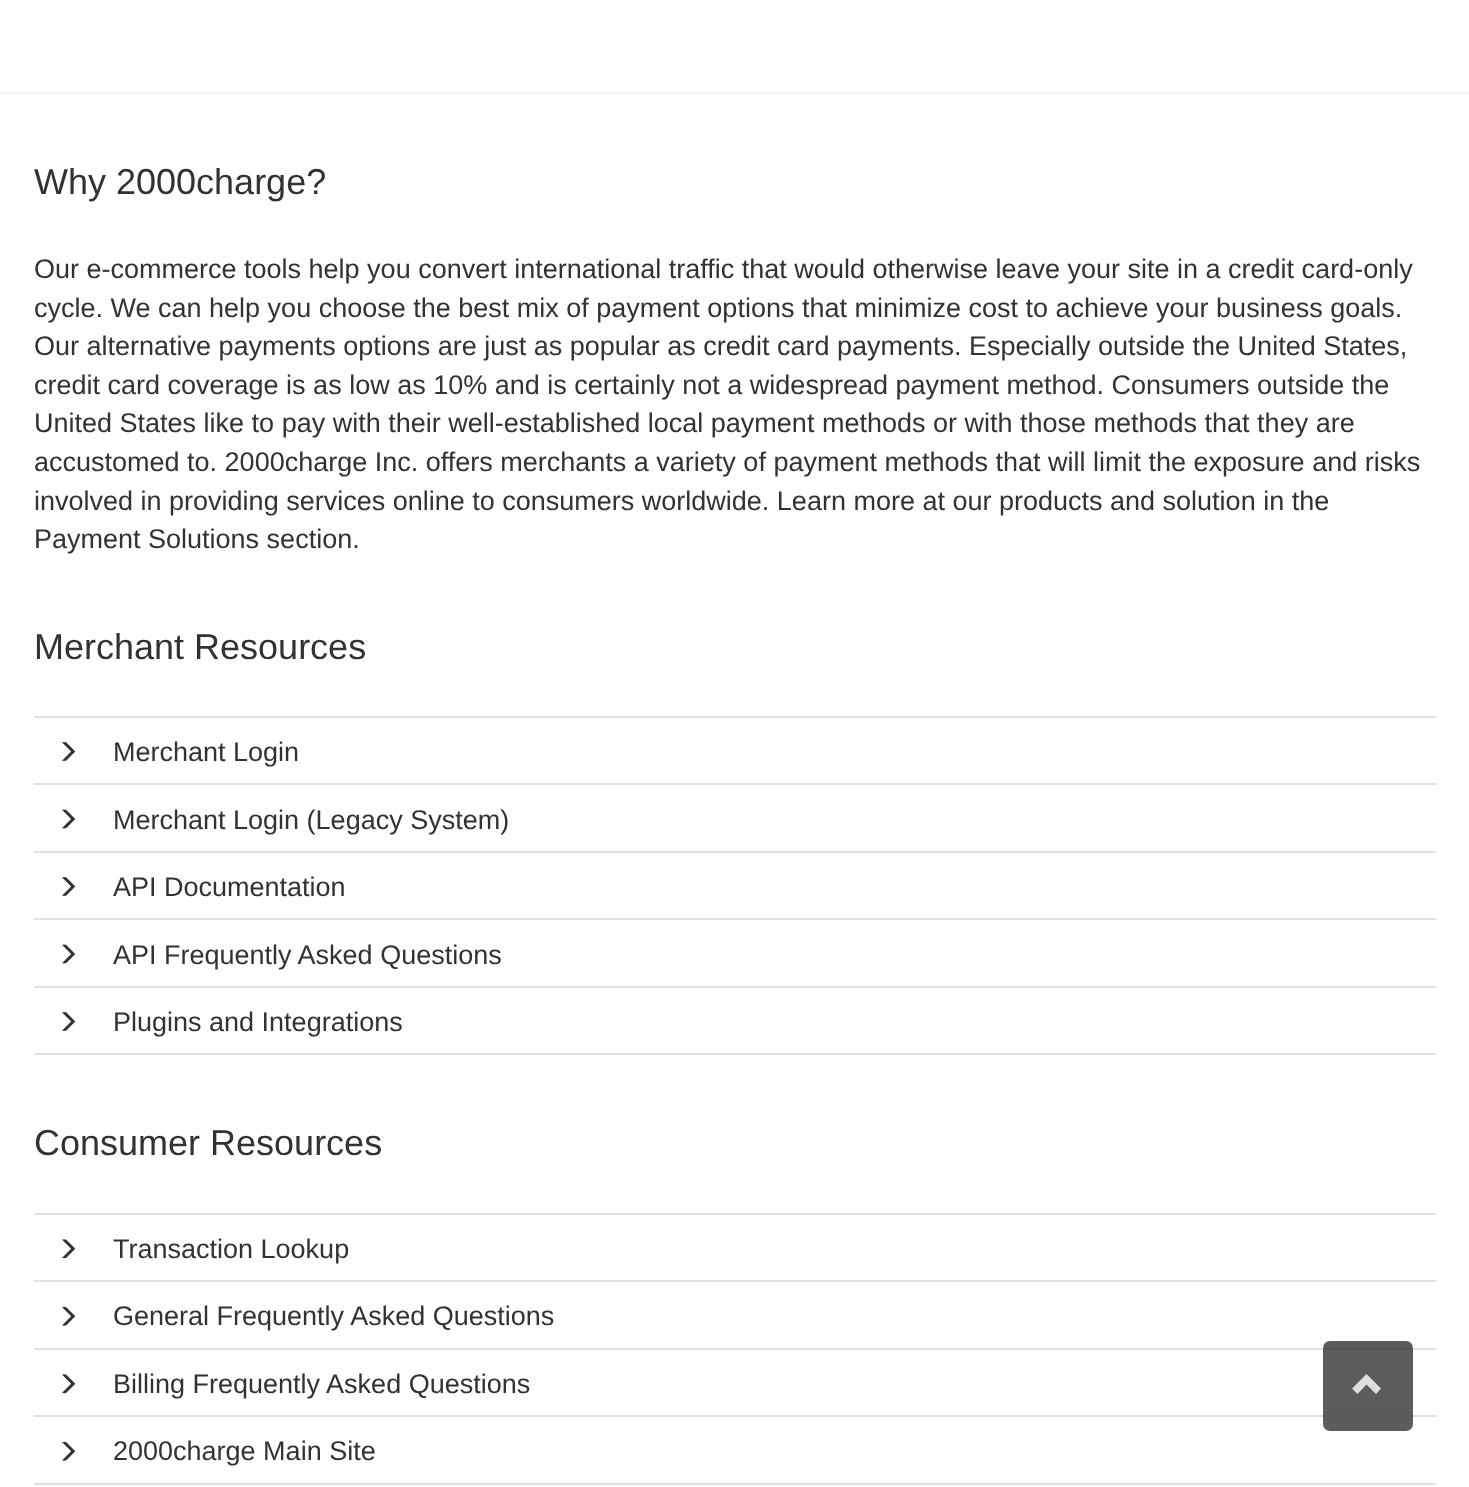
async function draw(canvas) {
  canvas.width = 1469;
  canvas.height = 1487;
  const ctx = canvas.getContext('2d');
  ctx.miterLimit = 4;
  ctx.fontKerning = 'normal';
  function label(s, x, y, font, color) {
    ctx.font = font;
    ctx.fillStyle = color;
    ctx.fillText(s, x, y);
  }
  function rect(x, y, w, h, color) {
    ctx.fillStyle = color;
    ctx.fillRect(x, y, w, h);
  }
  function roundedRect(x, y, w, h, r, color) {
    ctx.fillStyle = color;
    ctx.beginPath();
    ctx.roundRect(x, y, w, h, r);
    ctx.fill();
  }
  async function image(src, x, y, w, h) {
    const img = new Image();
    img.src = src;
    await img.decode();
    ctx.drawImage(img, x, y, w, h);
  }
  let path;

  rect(0, 0, 1469, 1487, '#fff');
  rect(34, 1483, 1402, 2, '#e0e0e0');
  rect(34, 1415, 1402, 2, '#e0e0e0');
  rect(34, 1348, 1402, 2, '#e0e0e0');
  rect(34, 1280, 1402, 2, '#e0e0e0');
  rect(34, 1213, 1402, 2, '#e0e0e0');
  rect(34, 1053, 1402, 2, '#e0e0e0');
  rect(34, 986, 1402, 2, '#e0e0e0');
  rect(34, 918, 1402, 2, '#e0e0e0');
  rect(34, 851, 1402, 2, '#e0e0e0');
  rect(34, 783, 1402, 2, '#e0e0e0');
  rect(34, 716, 1402, 2, '#e0e0e0');
  rect(0, 92, 1469, 2, '#f5f5f5');
  label('Why 2000charge?', 34, 194, '36px Liberation Sans', '#323232');
  label('Our e-commerce tools help you convert international traffic that would otherwise leave your site in a credit card-only', 34, 278, '27px Liberation Sans', '#323232');
  label('cycle. We can help you choose the best mix of payment options that minimize cost to achieve your business goals.', 34, 317, '27px Liberation Sans', '#323232');
  label('Our alternative payments options are just as popular as credit card payments. Especially outside the United States,', 34, 355, '27px Liberation Sans', '#323232');
  label('credit card coverage is as low as 10% and is certainly not a widespread payment method. Consumers outside the', 34, 394, '27px Liberation Sans', '#323232');
  label('United States like to pay with their well-established local payment methods or with those methods that they are', 34, 432, '27px Liberation Sans', '#323232');
  label('accustomed to. 2000charge Inc. offers merchants a variety of payment methods that will limit the exposure and risks', 34, 471, '27px Liberation Sans', '#323232');
  label('involved in providing services online to consumers worldwide. Learn more at our products and solution in the', 34, 510, '27px Liberation Sans', '#323232');
  label('Payment Solutions section.', 34, 548, '27px Liberation Sans', '#323232');
  label('Merchant Resources', 34, 659, '36px Liberation Sans', '#323232');
  await image('assets/img1.png', 62, 742, 14, 19);
  label('Merchant Login', 113, 761, '27px Liberation Sans', '#323232');
  await image('assets/img2.png', 62, 809, 13, 20);
  label('Merchant Login (Legacy System)', 113, 829, '27px Liberation Sans', '#323232');
  await image('assets/img3.png', 62, 877, 14, 19);
  label('API Documentation', 113, 896, '27px Liberation Sans', '#323232');
  await image('assets/img4.png', 62, 944, 13, 20);
  label('API Frequently Asked Questions', 113, 964, '27px Liberation Sans', '#323232');
  await image('assets/img5.png', 62, 1012, 14, 19);
  label('Plugins and Integrations', 113, 1031, '27px Liberation Sans', '#323232');
  label('Consumer Resources', 34, 1155, '36px Liberation Sans', '#323232');
  await image('assets/img6.png', 62, 1239, 14, 20);
  label('Transaction Lookup', 113, 1258, '27px Liberation Sans', '#323232');
  await image('assets/img7.png', 62, 1306, 14, 20);
  label('General Frequently Asked Questions', 113, 1325, '27px Liberation Sans', '#323232');
  await image('assets/img8.png', 62, 1374, 14, 20);
  label('Billing Frequently Asked Questions', 113, 1393, '27px Liberation Sans', '#323232');
  await image('assets/img9.png', 62, 1441, 14, 20);
  label('2000charge Main Site', 113, 1460, '27px Liberation Sans', '#323232');
  roundedRect(1323, 1341, 90, 90, 7, '#333333cc');
  ctx.fillStyle = '#dedede';
  path = new Path2D('M1381 1388.5L1376 1394L1366.5 1384.5L1357.5 1394L1352 1388.5L1366.5 1374Z');
  ctx.fill(path);
}

draw(document.querySelector('canvas'));
